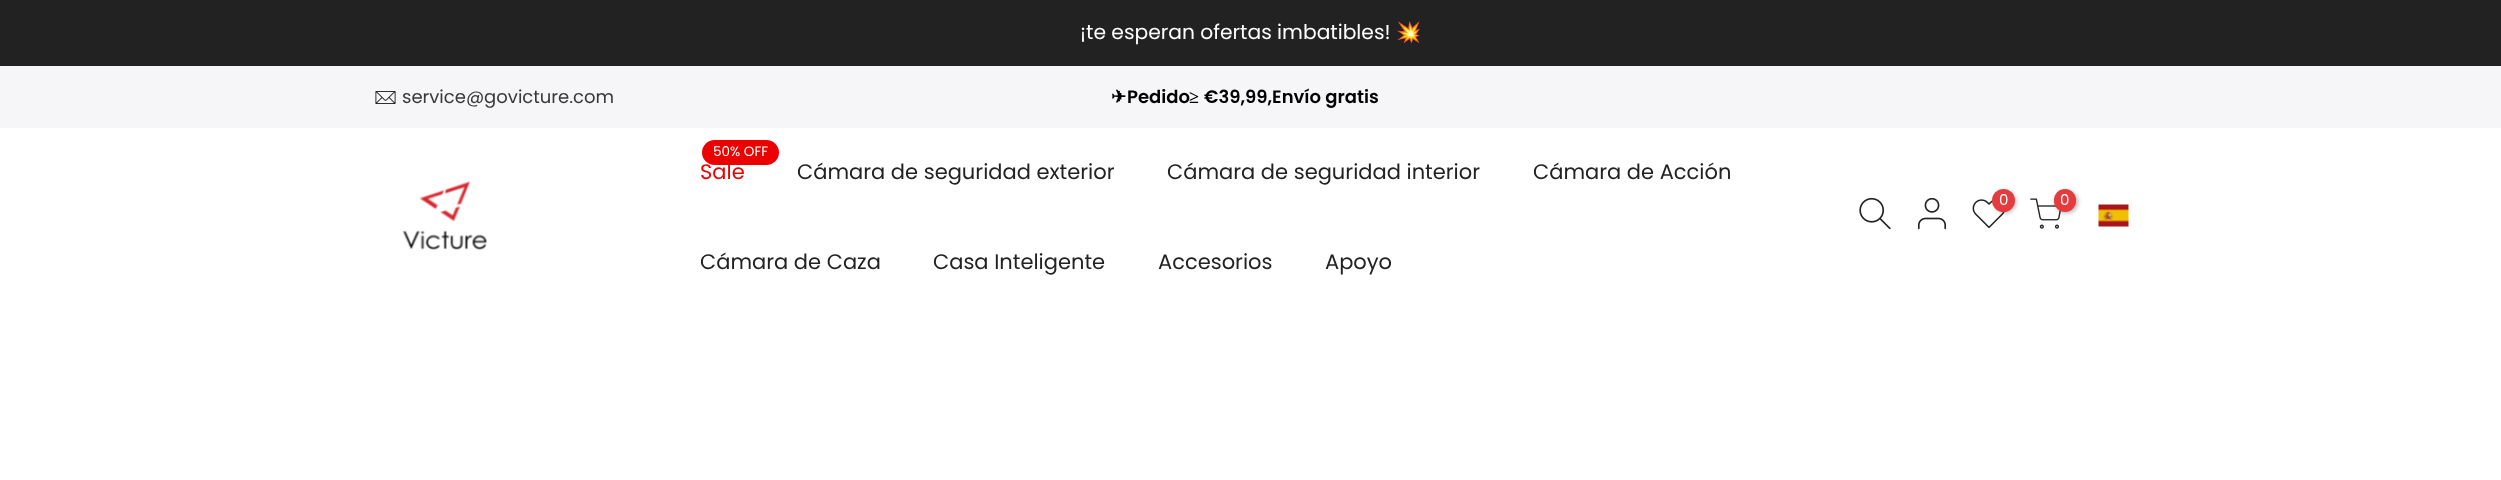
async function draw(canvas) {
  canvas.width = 2501;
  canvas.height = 480;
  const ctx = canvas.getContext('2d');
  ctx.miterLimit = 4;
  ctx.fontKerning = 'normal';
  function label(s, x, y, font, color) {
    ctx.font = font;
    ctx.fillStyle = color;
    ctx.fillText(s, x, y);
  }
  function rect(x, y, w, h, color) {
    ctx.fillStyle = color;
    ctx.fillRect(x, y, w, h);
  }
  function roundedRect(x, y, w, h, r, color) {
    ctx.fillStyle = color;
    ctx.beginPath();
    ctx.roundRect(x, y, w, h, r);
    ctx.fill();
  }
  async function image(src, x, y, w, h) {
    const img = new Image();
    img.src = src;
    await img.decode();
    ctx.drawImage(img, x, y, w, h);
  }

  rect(0, 0, 2501, 480, '#fff');
  rect(0, 0, 2501, 66, '#222');
  label('¡te esperan ofertas imbatibles!', 1080, 39, '20.25px Poppins', '#fff');
  label('💥', 1396, 39, '20.25px Noto Color Emoji', '#fff');
  rect(0, 66, 2501, 62, '#f6f6f8');
  await image('assets/img1.png', 375, 91, 21, 13);
  label('service@govicture.com', 402, 103, '18px Poppins', '#383838');
  label('✈', 1111, 103, 'bold 18px DejaVu Sans', '#000');
  label('Pedido', 1127, 103, '600 18px Poppins', '#000');
  label('≥', 1189, 103, 'bold 18px Liberation Serif', '#000');
  label('€39,99,Envío gratis', 1204, 103, '600 18px Poppins', '#000');
  await image('assets/img2.png', 402, 181, 85, 70);
  roundedRect(702, 140, 77, 25, 12.5, '#ec0101');
  label('50% OFF', 713, 156, '13.5px Poppins', '#fff');
  label('Sale', 700, 179, '21px Poppins', '#ec0101');
  label('Cámara de seguridad exterior', 797, 179, '21px Poppins', '#222');
  label('Cámara de seguridad interior', 1167, 179, '21px Poppins', '#222');
  label('Cámara de Acción', 1533, 179, '21px Poppins', '#222');
  label('Cámara de Caza', 700, 269, '21px Poppins', '#222');
  label('Casa Inteligente', 933, 269, '21px Poppins', '#222');
  label('Accesorios', 1158, 269, '21px Poppins', '#222');
  label('Apoyo', 1325, 269, '21px Poppins', '#222');
  await image('assets/img3.png', 1859, 197, 32, 33);
  await image('assets/img4.png', 1918, 197, 28, 33);
  await image('assets/img5.png', 1972, 199, 33, 30);
  ctx.fillStyle = '#0000004d';
  ctx.filter = 'blur(2px)';
  ctx.beginPath();
  ctx.roundRect(1994, 191, 22, 22, 11);
  ctx.fill();
  ctx.filter = 'none';
  ctx.fillStyle = '#e43b3f';
  ctx.beginPath();
  ctx.arc(2003.5, 200.5, 11.5, 0, 2 * Math.PI);
  ctx.fill();
  label('0', 1999, 205, '15px Poppins', '#fff');
  await image('assets/img6.png', 2030, 198, 31, 31);
  ctx.fillStyle = '#0000004d';
  ctx.filter = 'blur(2px)';
  ctx.beginPath();
  ctx.roundRect(2055, 191, 23, 22, 11);
  ctx.fill();
  ctx.filter = 'none';
  roundedRect(2054, 189, 22, 23, 11, '#e43b3f');
  label('0', 2060, 205, '15px Poppins', '#fff');
  await image('assets/img7.png', 2098, 204, 31, 23);
}

draw(document.querySelector('canvas'));
